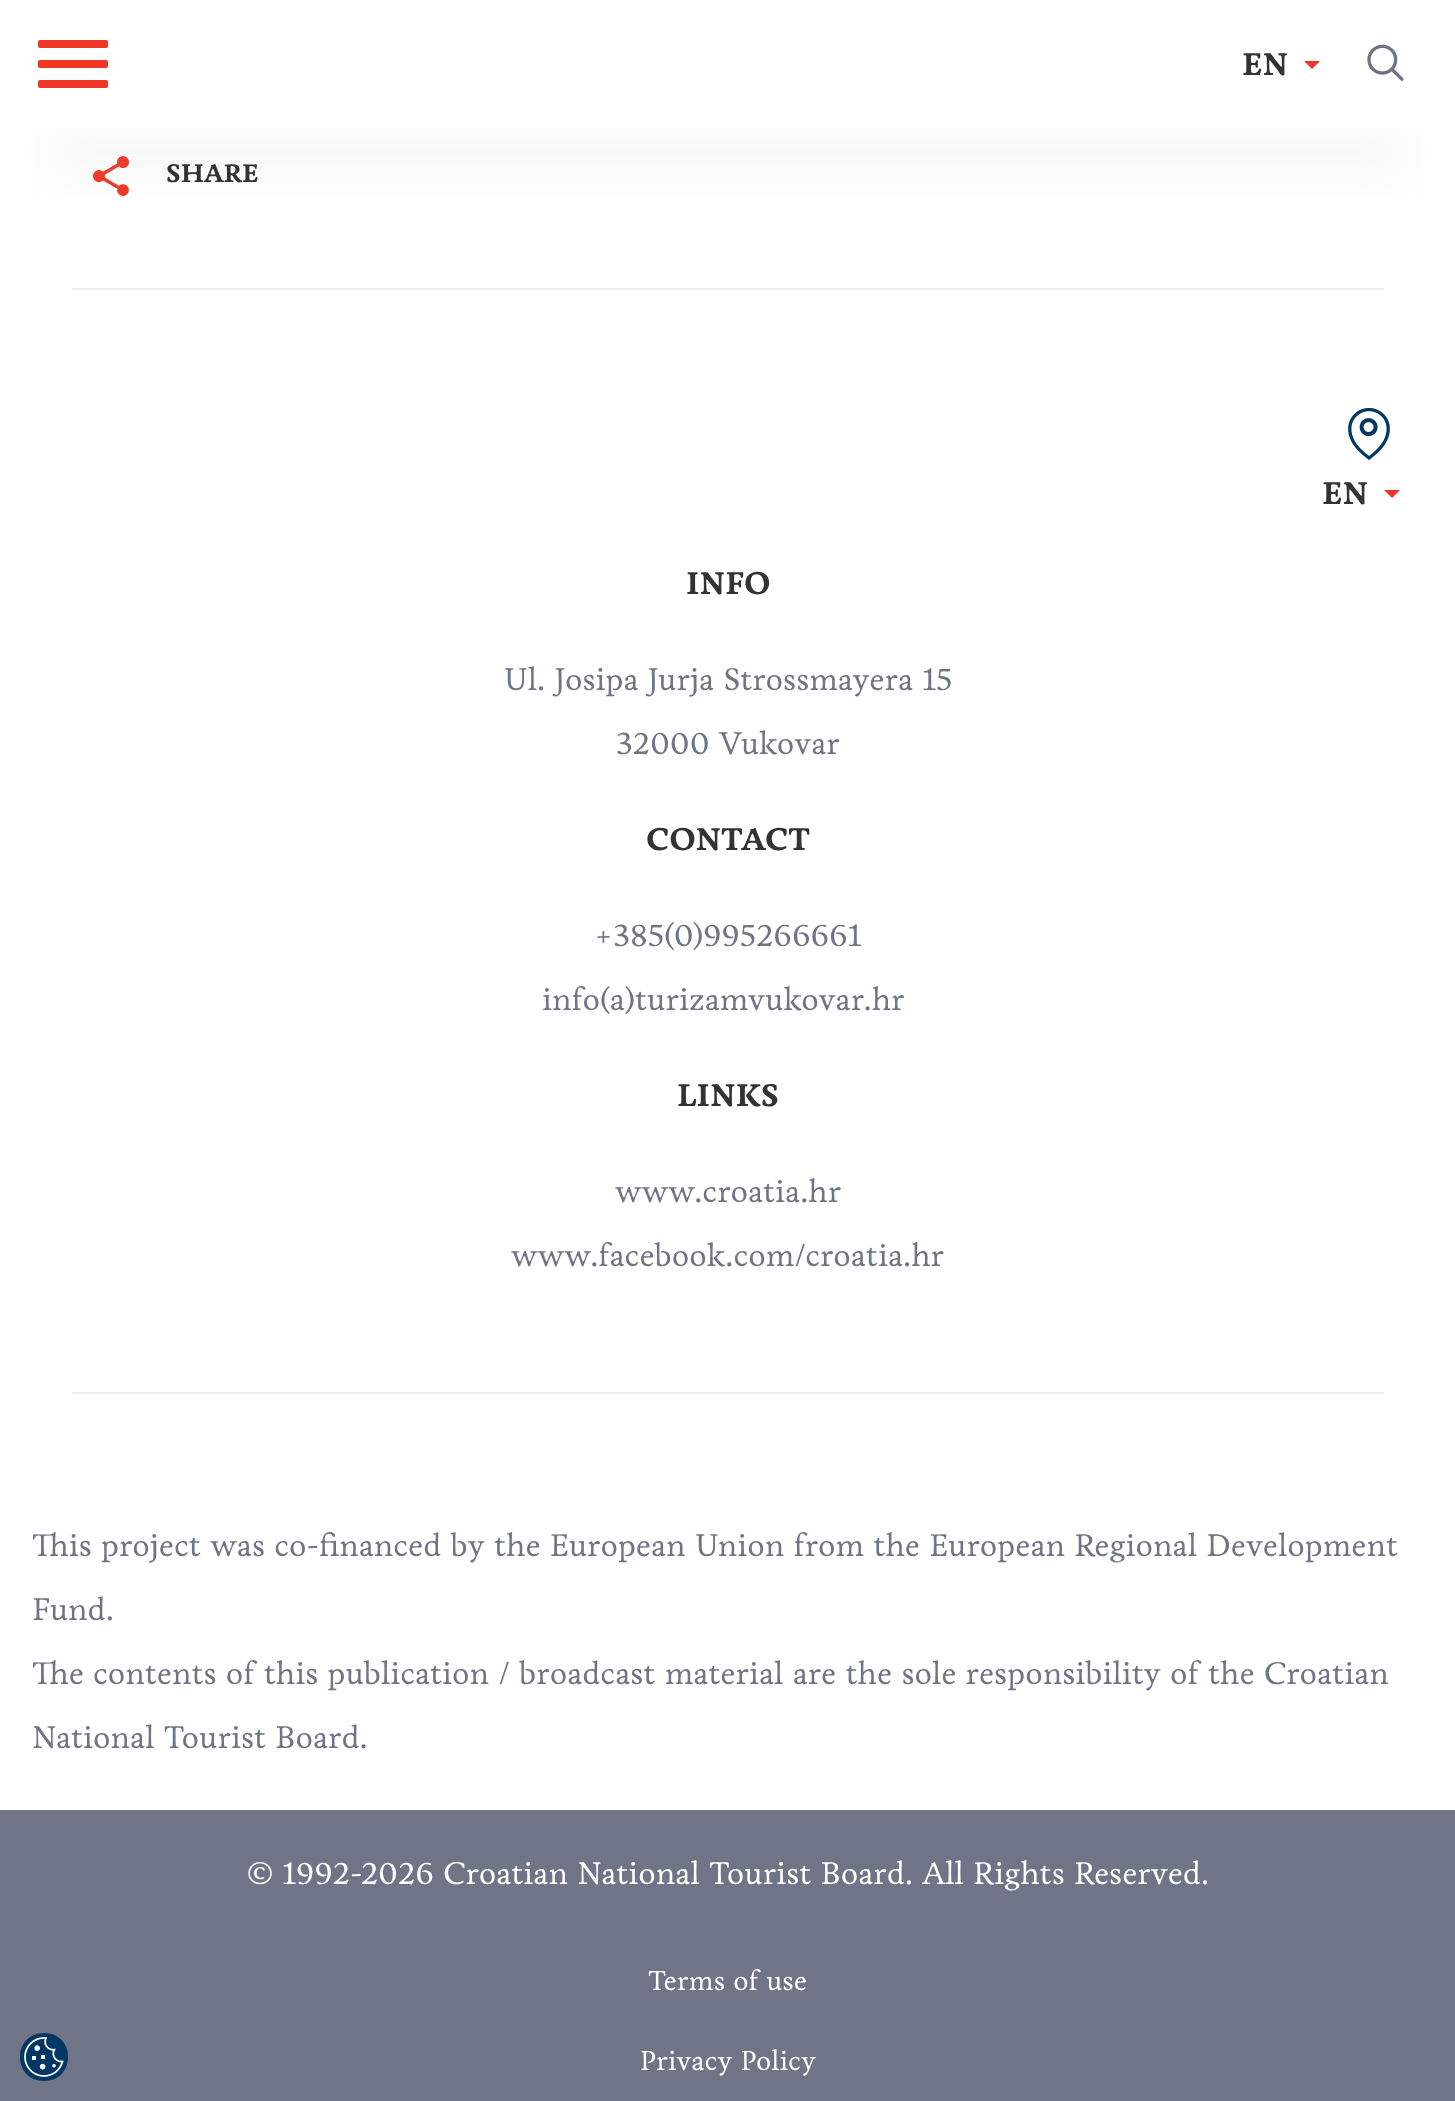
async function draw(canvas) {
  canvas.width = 1455;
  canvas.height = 2101;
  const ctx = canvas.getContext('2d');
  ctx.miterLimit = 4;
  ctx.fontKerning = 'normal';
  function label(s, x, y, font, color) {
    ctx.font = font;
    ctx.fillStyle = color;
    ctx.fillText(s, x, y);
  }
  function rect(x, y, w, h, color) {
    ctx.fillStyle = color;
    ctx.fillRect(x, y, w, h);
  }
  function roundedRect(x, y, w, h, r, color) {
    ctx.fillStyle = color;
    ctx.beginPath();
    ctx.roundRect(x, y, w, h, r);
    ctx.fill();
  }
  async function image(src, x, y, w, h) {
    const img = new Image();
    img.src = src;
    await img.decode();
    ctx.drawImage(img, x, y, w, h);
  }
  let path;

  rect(0, 0, 1455, 2101, '#fff');
  await image('assets/img2.png', 93, 156, 36, 40);
  ctx.save();
  ctx.beginPath();
  ctx.rect(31, 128, 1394, 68);
  ctx.clip();
  ctx.fillStyle = '#b0b0b02b';
  ctx.filter = 'blur(24px)';
  ctx.beginPath();
  ctx.rect(48, 136, 1360, 32);
  ctx.fill();
  ctx.filter = 'none';
  ctx.restore();
  roundedRect(38, 60, 70, 8, 2, '#ef3524');
  roundedRect(38, 40, 70, 8, 2, '#ef3524');
  roundedRect(38, 80, 70, 8, 2, '#ef3524');
  label('EN', 1242, 75, 'bold 32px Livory', '#333');
  ctx.fillStyle = '#ef3524';
  path = new Path2D('M1304 61H1320L1312 69Z');
  ctx.fill(path);
  await image('assets/img1.png', 1367, 44, 37, 37);
  label('SHARE', 166, 182, 'bold 26px Livory', '#333');
  rect(72, 288, 1312, 2, '#efeff2');
  await image('assets/img3.png', 1348, 407, 42, 53);
  label('EN', 1322, 504, 'bold 32px Livory', '#333');
  ctx.fillStyle = '#ef3524';
  path = new Path2D('M1384 490H1400L1392 498Z');
  ctx.fill(path);
  label('INFO', 686, 594, 'bold 32px Livory', '#333');
  label('Ul. Josipa Jurja Strossmayera 15', 504, 690, '32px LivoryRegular', '#6f7486');
  label('32000 Vukovar', 616, 754, '32px LivoryRegular', '#6f7486');
  label('CONTACT', 646, 850, 'bold 32px Livory', '#333');
  label('+385(0)995266661', 594, 946, '32px LivoryRegular', '#6f7486');
  label('info(a)turizamvukovar.hr', 542, 1010, '32px LivoryRegular', '#6f7486');
  label('LINKS', 677, 1106, 'bold 32px Livory', '#333');
  label('www.croatia.hr', 615, 1202, '32px LivoryRegular', '#6f7486');
  label('www.facebook.com/croatia.hr', 511, 1266, '32px LivoryRegular', '#6f7486');
  rect(72, 1392, 1312, 2, '#efeff2');
  label('This project was co-financed by the European Union from the European Regional Development', 32, 1556, '32px LivoryRegular', '#6f7486');
  label('Fund.', 32, 1620, '32px LivoryRegular', '#6f7486');
  label('The contents of this publication / broadcast material are the sole responsibility of the Croatian', 32, 1684, '32px LivoryRegular', '#6f7486');
  label('National Tourist Board.', 32, 1748, '32px LivoryRegular', '#6f7486');
  rect(0, 1810, 1455, 291, '#6f7486');
  ctx.fillStyle = '#003764';
  path = new Path2D('M44 2033C76 2033 76 2081 44 2081C12 2081 12 2033 44 2033Z');
  ctx.fill(path);
  await image('assets/img4.png', 24, 2037, 40, 40);
  await image('assets/img5.png', 34, 2045, 6, 6);
  rect(32, 2056, 4, 4, '#fff');
  rect(41, 2055, 4, 4, '#fff');
  await image('assets/img6.png', 39, 2063, 7, 7);
  await image('assets/img7.png', 52, 2063, 4, 5);
  label('© 1992-2026 Croatian National Tourist Board. All Rights Reserved.', 247, 1884, '32px LivoryRegular', '#fff');
  label('Terms of use', 648, 1990, '28px LivoryRegular', '#fff');
  label('Privacy Policy', 640, 2070, '28px LivoryRegular', '#fff');
}

draw(document.querySelector('canvas'));
